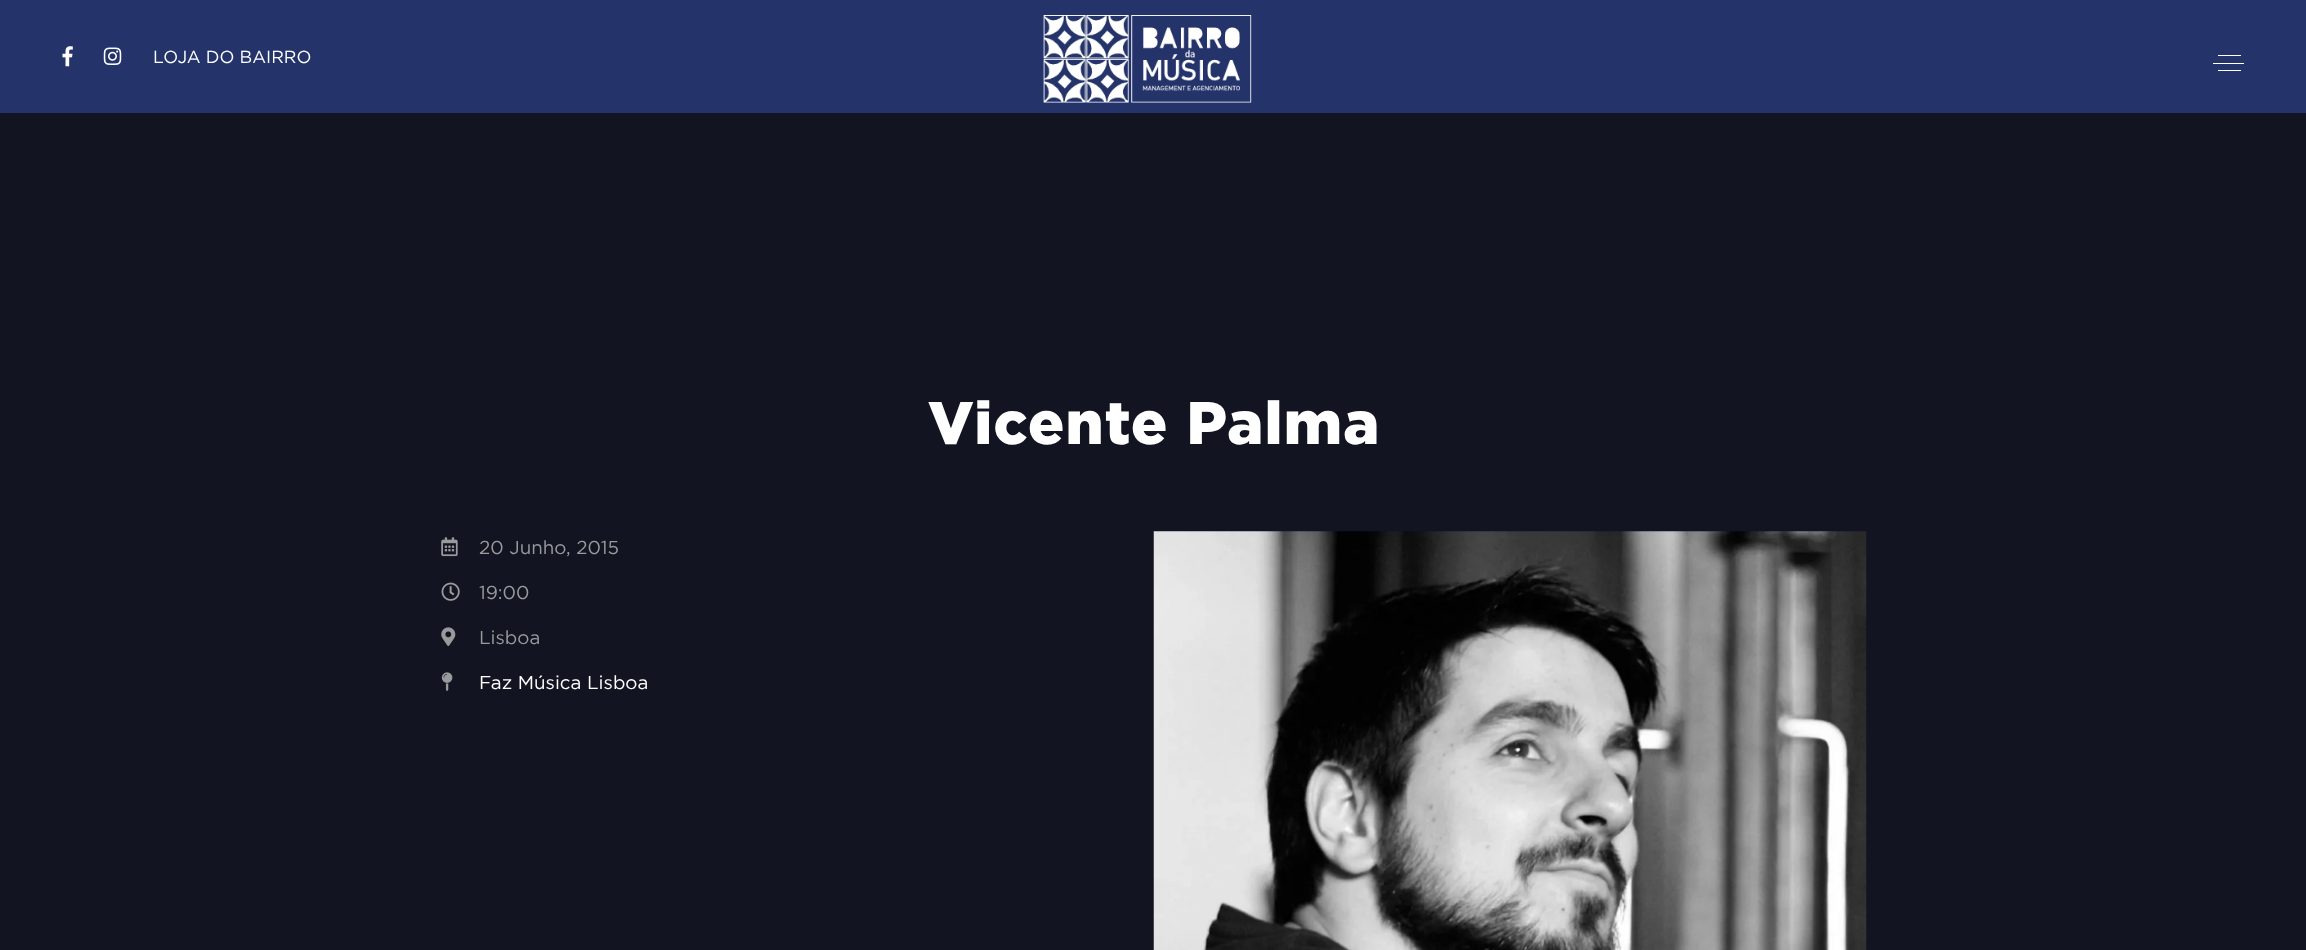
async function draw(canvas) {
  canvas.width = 2306;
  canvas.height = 950;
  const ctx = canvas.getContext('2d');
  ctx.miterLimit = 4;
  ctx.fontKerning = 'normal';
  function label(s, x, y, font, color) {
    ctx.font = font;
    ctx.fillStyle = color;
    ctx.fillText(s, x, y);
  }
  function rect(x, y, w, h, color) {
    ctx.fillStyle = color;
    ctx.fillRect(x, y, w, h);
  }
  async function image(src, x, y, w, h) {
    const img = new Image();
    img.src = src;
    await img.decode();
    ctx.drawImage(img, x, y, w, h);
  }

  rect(0, 0, 2306, 950, '#121421');
  rect(0, 0, 2306, 113, '#24336a');
  await image('assets/img1.png', 62, 46, 11, 21);
  await image('assets/img2.png', 103, 47, 19, 18);
  label('LOJA DO BAIRRO', 153, 63, '17.5px Gotham', '#fff');
  await image('assets/img3.png', 1043, 15, 209, 88);
  rect(2218, 55, 23, 1, '#fff');
  rect(2213, 63, 31, 1, '#fff');
  rect(2218, 70, 23, 1, '#fff');
  ctx.letterSpacing = '1.25px';
  label('Vicente Palma', 928, 444, '900 60px Gotham', '#fff');
  await image('assets/img4.png', 441, 537, 17, 20);
  ctx.letterSpacing = '0px';
  label('20 Junho, 2015', 479, 554, '18.75px Gotham', '#989a9c');
  await image('assets/img5.png', 441, 582, 19, 19);
  label('19:00', 479, 599, '18.75px Gotham', '#989a9c');
  await image('assets/img6.png', 441, 627, 15, 20);
  label('Lisboa', 479, 644, '18.75px Gotham', '#989a9c');
  await image('assets/img7.png', 441, 672, 12, 19);
  label('Faz Música Lisboa', 479, 689, '18.75px Gotham', '#fff');
  await image('assets/img8.png', 1153, 531, 714, 419);
}

draw(document.querySelector('canvas'));
